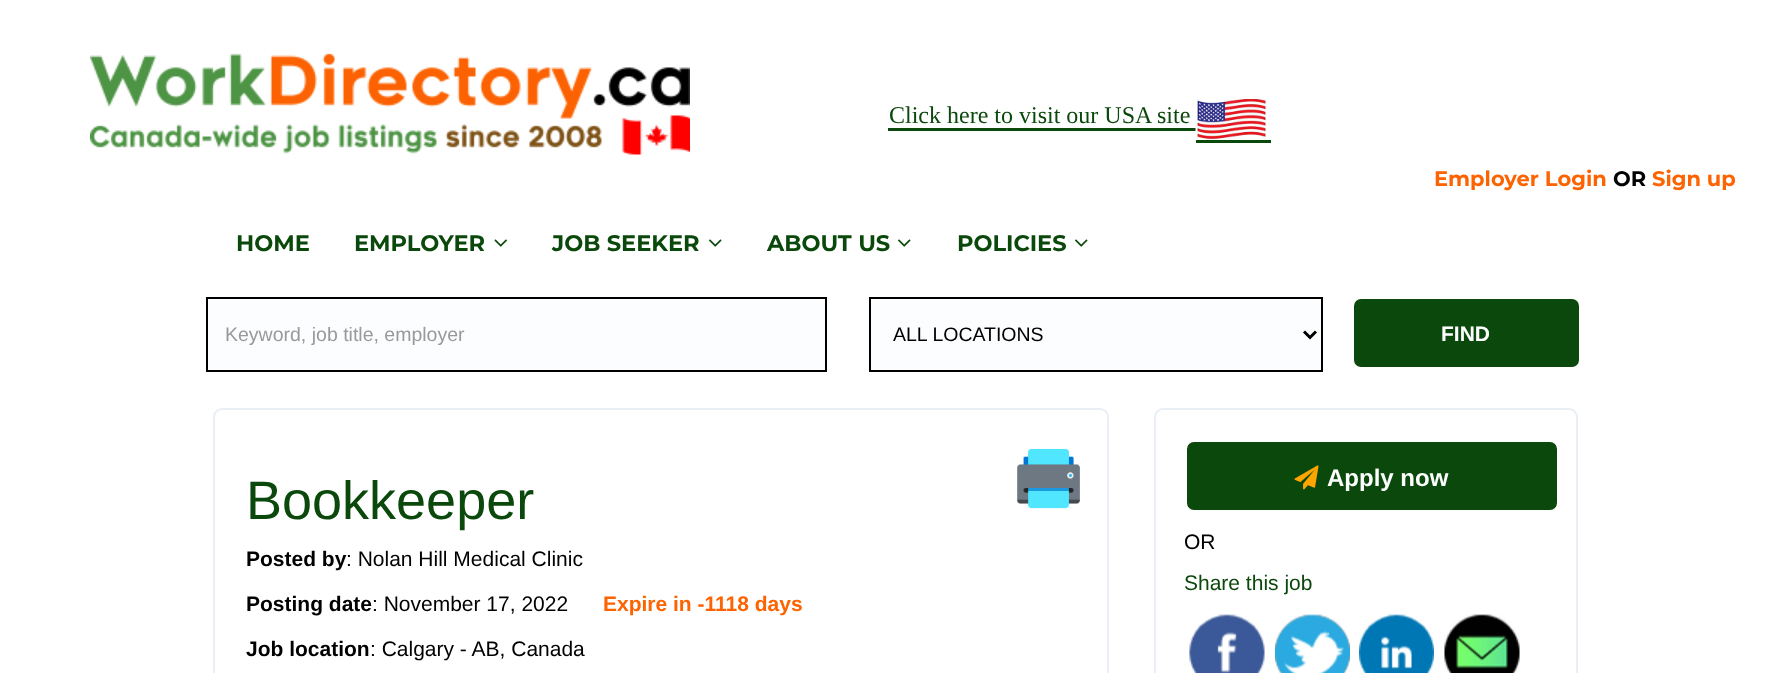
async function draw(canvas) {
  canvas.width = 1791;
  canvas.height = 673;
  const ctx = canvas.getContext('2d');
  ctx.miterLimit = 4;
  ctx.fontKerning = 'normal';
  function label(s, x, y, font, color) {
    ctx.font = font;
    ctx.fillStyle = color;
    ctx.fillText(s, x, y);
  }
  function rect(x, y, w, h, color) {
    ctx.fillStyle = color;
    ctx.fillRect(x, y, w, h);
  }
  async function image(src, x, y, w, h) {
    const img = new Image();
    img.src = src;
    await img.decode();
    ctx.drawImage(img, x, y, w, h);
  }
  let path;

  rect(0, 0, 1791, 673, '#fff');
  await image('assets/img1.png', 90, 53, 600, 102);
  label('Click here to visit our USA site', 889, 123, '24px Liberation Serif', '#0b480b');
  rect(888, 128, 308, 3, '#0b480b');
  rect(1196, 140, 75, 3, '#0b480b');
  await image('assets/img2.png', 1195, 99, 72, 41);
  label('Employer Login', 1434, 186, 'bold 21px Montserrat', '#fd6301');
  label('OR', 1613, 186, 'bold 21px Montserrat', '#000');
  label('Sign up', 1652, 186, 'bold 21px Montserrat', '#fd6301');
  label('HOME', 236, 251, 'bold 22.5px Montserrat', '#0b480b');
  label('EMPLOYER', 354, 251, 'bold 22.5px Montserrat', '#0b480b');
  await image('assets/img3.png', 494, 239, 13, 8);
  label('JOB SEEKER', 552, 251, 'bold 22.5px Montserrat', '#0b480b');
  await image('assets/img4.png', 709, 239, 13, 8);
  label('ABOUT US', 767, 251, 'bold 22.5px Montserrat', '#0b480b');
  await image('assets/img4.png', 898, 239, 13, 8);
  label('POLICIES', 957, 251, 'bold 22.5px Montserrat', '#0b480b');
  await image('assets/img4.png', 1075, 239, 13, 8);
  ctx.fillStyle = '#fbfdff';
  ctx.beginPath();
  ctx.rect(207, 298, 619, 73);
  ctx.fill();
  ctx.strokeStyle = '#000';
  ctx.lineWidth = 2;
  ctx.stroke();
  label('Keyword, job title, employer', 225, 341, '19.5px Liberation Sans', '#999');
  ctx.fillStyle = '#fbfdff';
  ctx.beginPath();
  ctx.rect(870, 298, 452, 73);
  ctx.fill();
  ctx.stroke();
  path = new Path2D('M1304 331.5L1310 337.5L1316 331.5');
  ctx.lineWidth = 3;
  ctx.stroke(path);
  label('ALL LOCATIONS', 893, 341, '19.5px Liberation Sans', '#000');
  ctx.fillStyle = '#0b480b';
  ctx.beginPath();
  ctx.roundRect(1353, 298, 227, 70, 8);
  ctx.fill();
  ctx.strokeStyle = '#fff';
  ctx.lineWidth = 2;
  ctx.stroke();
  label('FIND', 1441, 341, 'bold 21px Liberation Sans', '#fff');
  ctx.beginPath();
  ctx.roundRect(214, 409, 894, 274, 8);
  ctx.strokeStyle = '#eaeff5';
  ctx.stroke();
  label('Bookkeeper', 246, 519, '54px Liberation Sans', '#0b480b');
  label('Posted by', 246, 566, 'bold 21px Liberation Sans', '#000');
  label(': Nolan Hill Medical Clinic', 346, 566, '21px Liberation Sans', '#000');
  await image('assets/img5.png', 1017, 448, 63, 61);
  label('Posting date', 246, 611, 'bold 21px Liberation Sans', '#000');
  label(': November 17, 2022', 372, 611, '21px Liberation Sans', '#000');
  label('Expire in -1118 days', 603, 611, 'bold 21px Liberation Sans', '#fd6301');
  label('Job location', 246, 656, 'bold 21px Liberation Sans', '#000');
  label(': Calgary - AB, Canada', 370, 656, '21px Liberation Sans', '#000');
  ctx.beginPath();
  ctx.roundRect(1155, 409, 422, 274, 8);
  ctx.stroke();
  ctx.fillStyle = '#0b480b';
  ctx.beginPath();
  ctx.roundRect(1186, 441, 372, 70, 8);
  ctx.fill();
  ctx.strokeStyle = '#fff';
  ctx.stroke();
  await image('assets/img6.png', 1294, 465, 25, 25);
  label('Apply now', 1327, 486, 'bold 24px Liberation Sans', '#fff');
  label('OR', 1184, 549, '21px Liberation Sans', '#000');
  label('Share this job', 1184, 590, '21px Liberation Sans', '#0b480b');
  await image('assets/img7.png', 1189, 614, 76, 59);
  await image('assets/img8.png', 1275, 614, 75, 59);
  await image('assets/img9.png', 1359, 614, 75, 59);
  await image('assets/img10.png', 1444, 614, 76, 59);
}

draw(document.querySelector('canvas'));
